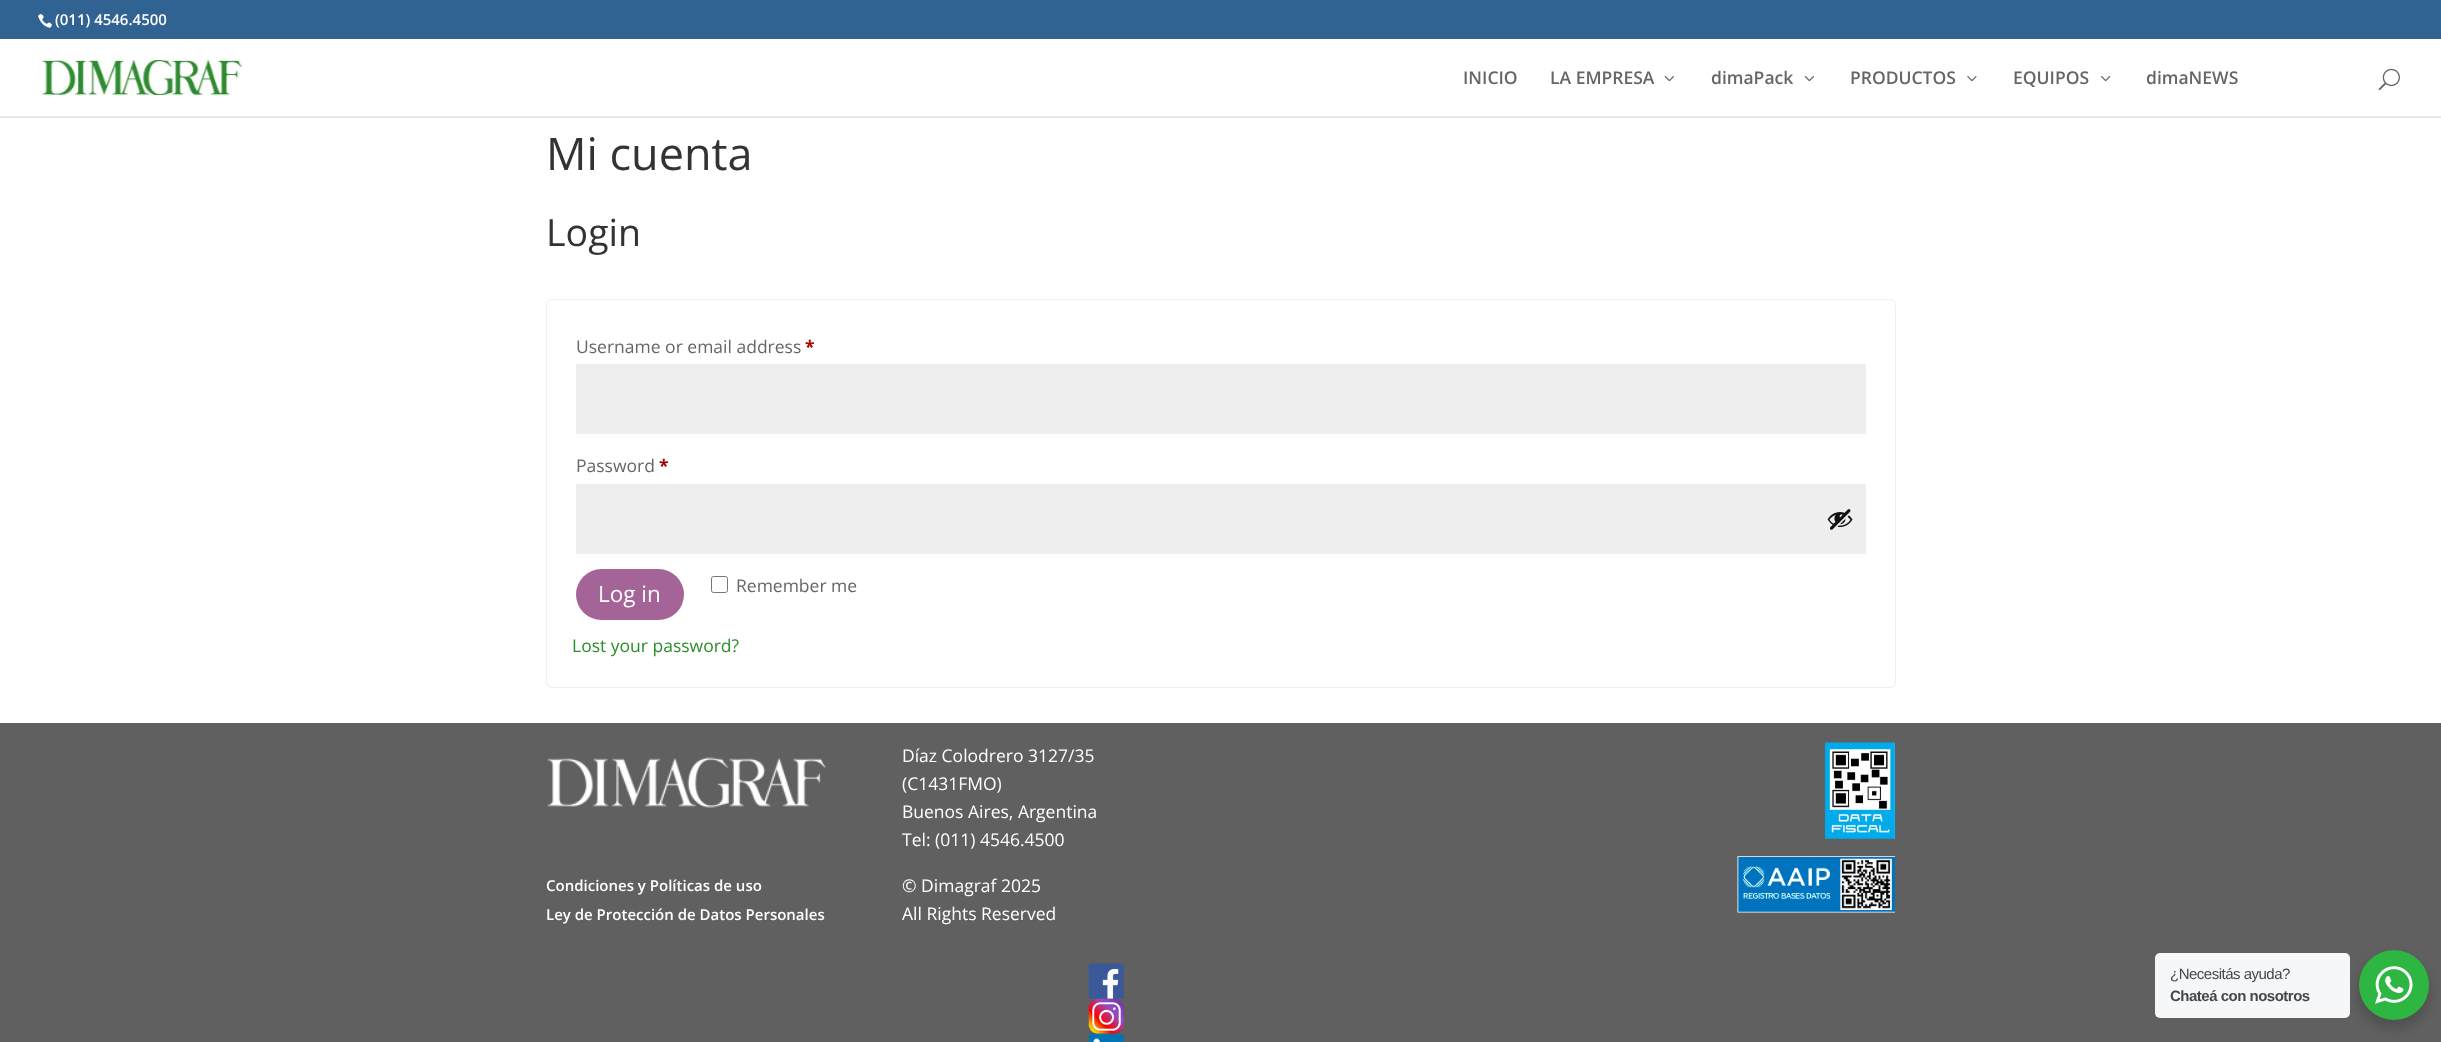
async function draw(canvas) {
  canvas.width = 2441;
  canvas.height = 1042;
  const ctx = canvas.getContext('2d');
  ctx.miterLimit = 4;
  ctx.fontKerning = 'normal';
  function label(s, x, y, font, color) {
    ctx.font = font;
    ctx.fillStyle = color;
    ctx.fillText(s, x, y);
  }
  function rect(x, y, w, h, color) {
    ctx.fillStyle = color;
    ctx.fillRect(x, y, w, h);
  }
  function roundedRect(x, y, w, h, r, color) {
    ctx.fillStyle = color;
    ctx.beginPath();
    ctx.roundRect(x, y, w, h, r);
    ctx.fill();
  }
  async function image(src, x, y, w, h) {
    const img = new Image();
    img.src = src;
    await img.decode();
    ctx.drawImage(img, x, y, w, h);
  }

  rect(0, 0, 2441, 1042, '#fff');
  rect(0, 0, 2441, 39, '#306292');
  await image('assets/img1.png', 38, 14, 14, 14);
  label('(011) 4546.4500', 55, 25, '600 15px Open Sans', '#fff');
  rect(0, 116, 2441, 2, '#e6e6e6');
  await image('assets/img2.png', 42, 60, 201, 35);
  label('INICIO', 1463, 84, '600 17.5px Open Sans', '#666');
  label('LA EMPRESA', 1550, 84, '600 17.5px Open Sans', '#666');
  await image('assets/img3.png', 1664, 76, 10, 6);
  label('dimaPack', 1711, 84, '600 17.5px Open Sans', '#666');
  await image('assets/img3.png', 1804, 76, 10, 6);
  label('PRODUCTOS', 1850, 84, '600 17.5px Open Sans', '#666');
  await image('assets/img4.png', 1967, 76, 10, 6);
  label('EQUIPOS', 2013, 84, '600 17.5px Open Sans', '#666');
  await image('assets/img5.png', 2101, 76, 10, 6);
  label('dimaNEWS', 2146, 84, '600 17.5px Open Sans', '#666');
  await image('assets/img6.png', 2378, 68, 22, 23);
  label('Mi cuenta', 546, 170, '45px Open Sans', '#333');
  label('Login', 546, 246, '37.5px Open Sans', '#333');
  ctx.beginPath();
  ctx.roundRect(546.5, 299.5, 1349, 388, 5.5);
  ctx.strokeStyle = '#eee';
  ctx.stroke();
  label('Username or email address', 576, 353, '17.5px Open Sans', '#666');
  label('*', 805, 353, 'bold 17.5px Open Sans', '#a00');
  rect(576, 364, 1290, 70, '#eee');
  label('Password', 576, 472, '17.5px Open Sans', '#666');
  label('*', 659, 472, 'bold 17.5px Open Sans', '#a00');
  rect(576, 484, 1290, 70, '#eee');
  await image('assets/img7.png', 1827, 509, 26, 21);
  roundedRect(576, 569, 108, 51, 25.5, '#a46497');
  label('Log in', 598, 602, '22.5px Open Sans', '#fff');
  ctx.beginPath();
  ctx.roundRect(711.5, 576.5, 16, 16, 2);
  ctx.strokeStyle = '#767676';
  ctx.stroke();
  label('Remember me', 736, 592, '17.5px Open Sans', '#666');
  label('Lost your password?', 572, 652, '17.5px Open Sans', '#2c8d2c');
  rect(0, 723, 2441, 319, '#606060');
  await image('assets/img8.png', 547, 757, 279, 51);
  label('Condiciones y Políticas de uso', 546, 891, '600 15px Open Sans', '#fff');
  label('Ley de Protección de Datos Personales', 546, 920, '600 15px Open Sans', '#fff');
  label('Díaz Colodrero 3127/35', 902, 762, '17.5px Open Sans', '#fff');
  label('(C1431FMO)', 902, 790, '17.5px Open Sans', '#fff');
  label('Buenos Aires, Argentina', 902, 818, '17.5px Open Sans', '#fff');
  label('Tel: (011) 4546.4500', 902, 846, '17.5px Open Sans', '#fff');
  label('© Dimagraf 2025', 902, 892, '17.5px Open Sans', '#fff');
  label('All Rights Reserved', 902, 920, '17.5px Open Sans', '#fff');
  await image('assets/img9.png', 1825, 742, 70, 97);
  await image('assets/img10.png', 1737, 856, 158, 57);
  await image('assets/img11.png', 1088, 963, 36, 36);
  await image('assets/img12.png', 1088, 998, 36, 36);
  await image('assets/img13.png', 1088, 1033, 36, 9);
  ctx.fillStyle = '#00000024';
  ctx.filter = 'blur(5px)';
  ctx.beginPath();
  ctx.roundRect(2356, 955, 75, 75, 37.5);
  ctx.fill();
  ctx.filter = 'none';
  roundedRect(2155, 953, 195, 65, 5, '#f5f7f9');
  ctx.letterSpacing = '-0.5px';
  label('¿Necesitás ayuda?', 2170, 979, '15px Liberation Sans', '#43474e');
  label('Chateá con nosotros', 2170, 1001, 'bold 15px Liberation Sans', '#43474e');
  ctx.fillStyle = '#2db742';
  ctx.beginPath();
  ctx.arc(2394, 985, 35, 0, 2 * Math.PI);
  ctx.fill();
  await image('assets/img14.png', 2375, 966, 38, 38);
}

draw(document.querySelector('canvas'));
